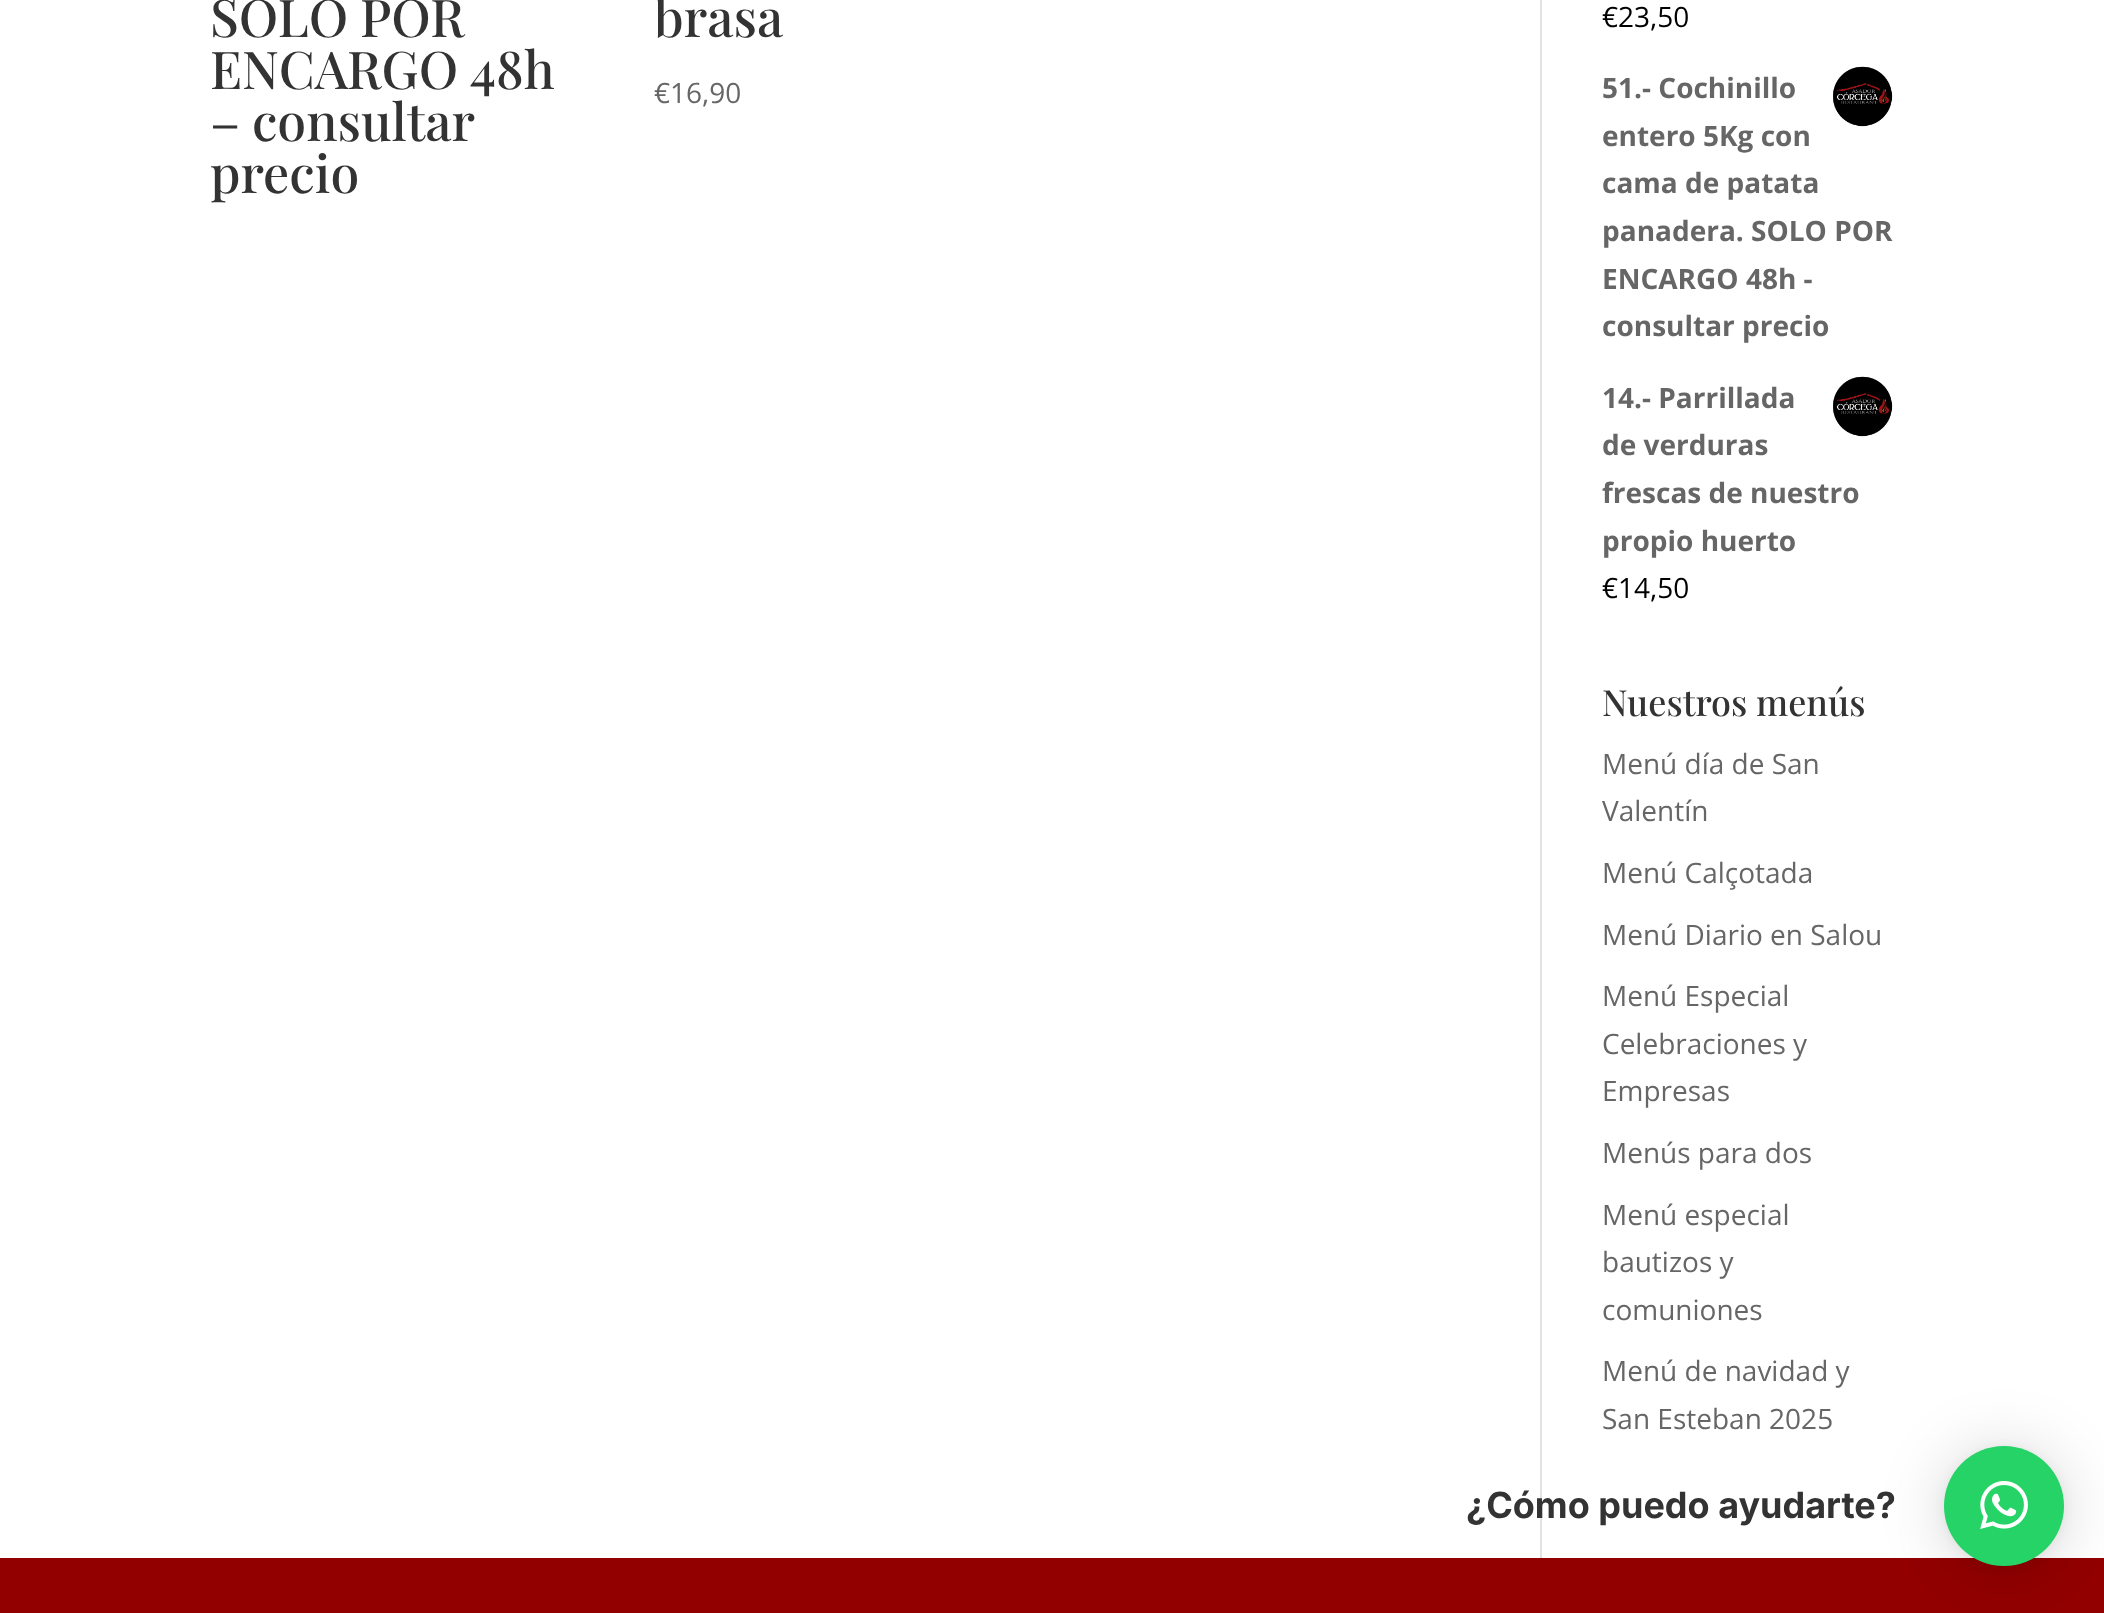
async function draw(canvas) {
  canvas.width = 2104;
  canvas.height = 1613;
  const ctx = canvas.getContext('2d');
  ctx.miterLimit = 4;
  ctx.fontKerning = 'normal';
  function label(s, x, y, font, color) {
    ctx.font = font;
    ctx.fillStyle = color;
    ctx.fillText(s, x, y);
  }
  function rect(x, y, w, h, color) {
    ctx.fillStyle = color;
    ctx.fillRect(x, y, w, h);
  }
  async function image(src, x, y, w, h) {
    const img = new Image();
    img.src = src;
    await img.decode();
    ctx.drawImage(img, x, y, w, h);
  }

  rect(0, 0, 2104, 1613, '#fff');
  ctx.wordSpacing = '-1px';
  label('SOLO POR', 210, 37, '500 52px Playfair Display', '#333');
  ctx.wordSpacing = '0px';
  label('ENCARGO 48h', 210, 89, '500 52px Playfair Display', '#333');
  ctx.wordSpacing = '-1px';
  label('– consultar', 210, 141, '500 52px Playfair Display', '#333');
  ctx.wordSpacing = '0px';
  label('precio', 210, 193, '500 52px Playfair Display', '#333');
  label('brasa', 654, 37, '500 52px Playfair Display', '#333');
  label('€16,90', 654, 103, '28px Open Sans', '#666');
  label('€23,50', 1602, 27, '28px Open Sans', '#000');
  label('51.- Cochinillo', 1602, 98, 'bold 28px Open Sans', '#666');
  await image('assets/img1.png', 1833, 66, 60, 61);
  label('entero 5Kg con', 1602, 146, 'bold 28px Open Sans', '#666');
  label('cama de patata', 1602, 193, 'bold 28px Open Sans', '#666');
  label('panadera. SOLO POR', 1602, 241, 'bold 28px Open Sans', '#666');
  label('ENCARGO 48h -', 1602, 289, 'bold 28px Open Sans', '#666');
  label('consultar precio', 1602, 336, 'bold 28px Open Sans', '#666');
  label('14.- Parrillada', 1602, 408, 'bold 28px Open Sans', '#666');
  await image('assets/img1.png', 1833, 376, 60, 61);
  label('de verduras', 1602, 455, 'bold 28px Open Sans', '#666');
  label('frescas de nuestro', 1602, 503, 'bold 28px Open Sans', '#666');
  label('propio huerto', 1602, 551, 'bold 28px Open Sans', '#666');
  label('€14,50', 1602, 598, '28px Open Sans', '#000');
  label('Nuestros menús', 1602, 716, '500 36px Playfair Display', '#333');
  label('Menú día de San', 1602, 774, '28px Open Sans', '#666');
  label('Valentín', 1602, 821, '28px Open Sans', '#666');
  label('Menú Calçotada', 1602, 883, '28px Open Sans', '#666');
  label('Menú Diario en Salou', 1602, 945, '28px Open Sans', '#666');
  label('Menú Especial', 1602, 1006, '28px Open Sans', '#666');
  label('Celebraciones y', 1602, 1054, '28px Open Sans', '#666');
  label('Empresas', 1602, 1101, '28px Open Sans', '#666');
  label('Menús para dos', 1602, 1163, '28px Open Sans', '#666');
  label('Menú especial', 1602, 1225, '28px Open Sans', '#666');
  label('bautizos y', 1602, 1272, '28px Open Sans', '#666');
  label('comuniones', 1602, 1320, '28px Open Sans', '#666');
  label('Menú de navidad y', 1602, 1381, '28px Open Sans', '#666');
  label('San Esteban 2025', 1602, 1429, '28px Open Sans', '#666');
  rect(1540, 0, 2, 1558, '#e2e2e2');
  rect(0, 1558, 2104, 55, '#930000');
  ctx.fillStyle = '#00000029';
  ctx.filter = 'blur(32px)';
  ctx.beginPath();
  ctx.roundRect(1944, 1450, 120, 120, 60);
  ctx.fill();
  ctx.filter = 'none';
  ctx.fillStyle = '#0000000f';
  ctx.filter = 'blur(6px)';
  ctx.beginPath();
  ctx.roundRect(1944, 1448, 120, 120, 60);
  ctx.fill();
  ctx.filter = 'none';
  ctx.fillStyle = '#25d366';
  ctx.beginPath();
  ctx.arc(2004, 1506, 60, 0, 2 * Math.PI);
  ctx.fill();
  label('¿Cómo puedo ayudarte?', 1466, 1518, 'bold 36px Inter', '#333');
  await image('assets/img2.png', 1980, 1481, 48, 48);
}

draw(document.querySelector('canvas'));
